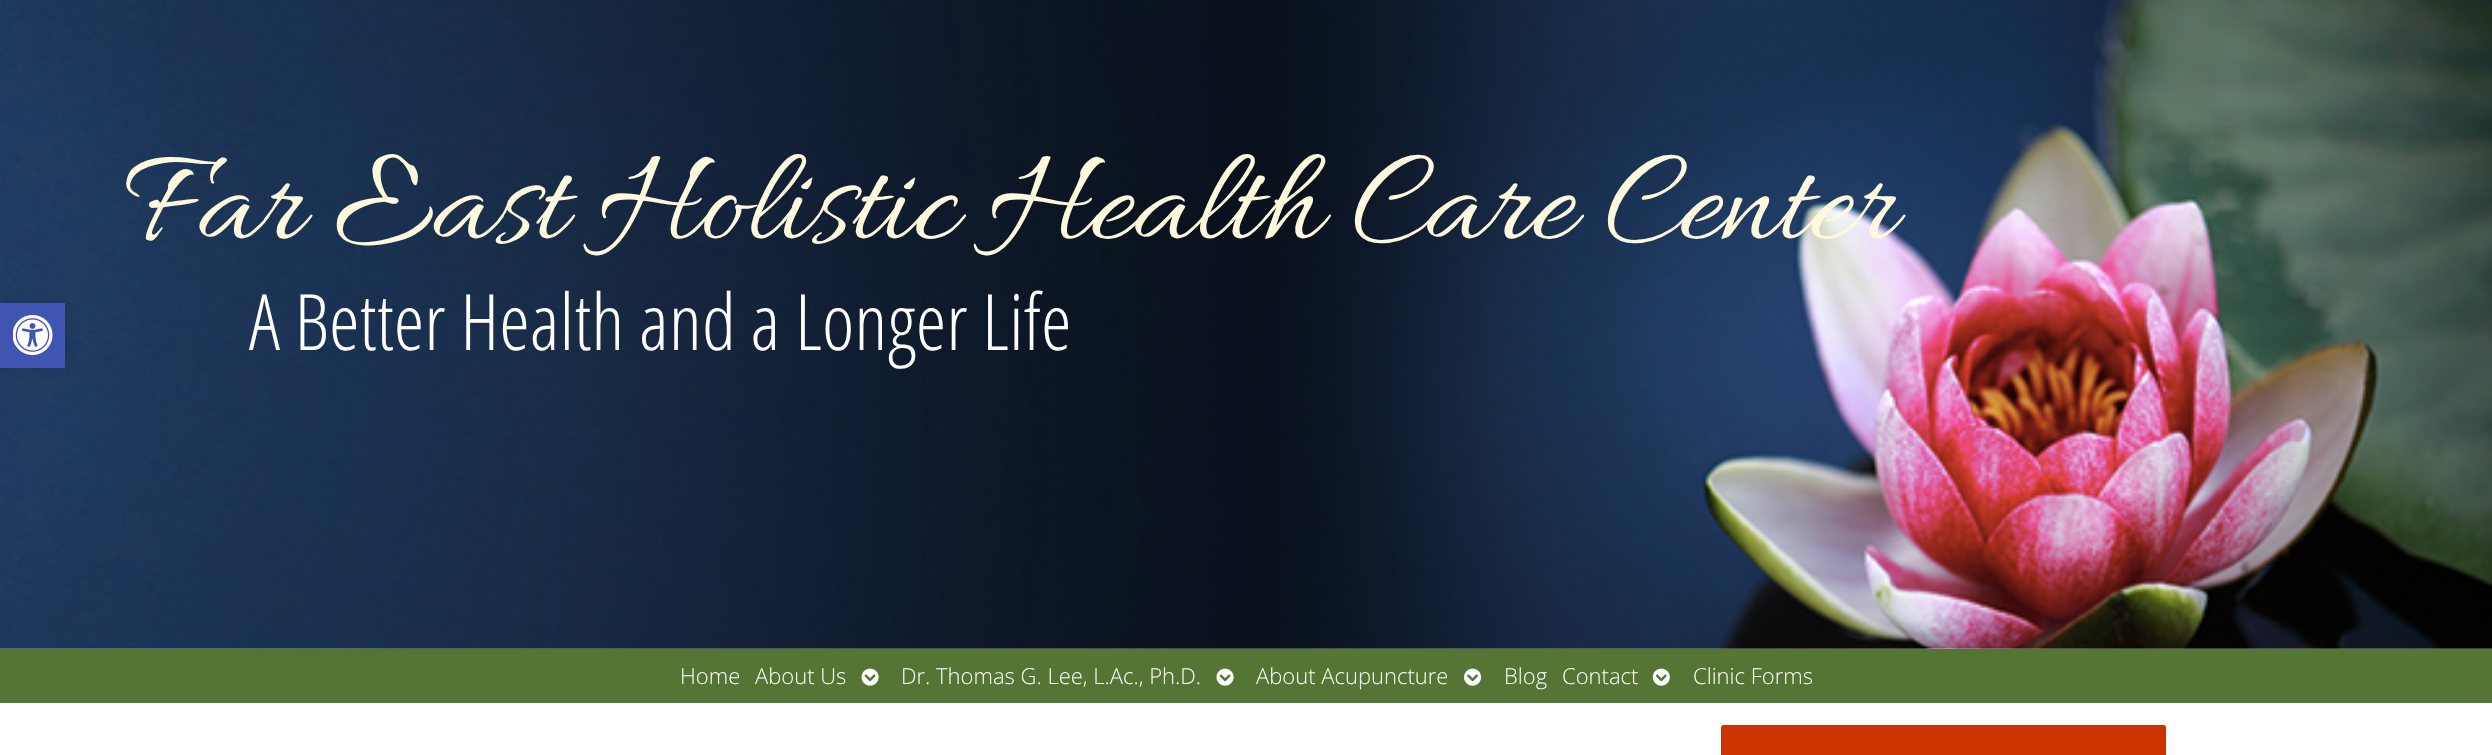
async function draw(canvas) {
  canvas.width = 2492;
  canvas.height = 755;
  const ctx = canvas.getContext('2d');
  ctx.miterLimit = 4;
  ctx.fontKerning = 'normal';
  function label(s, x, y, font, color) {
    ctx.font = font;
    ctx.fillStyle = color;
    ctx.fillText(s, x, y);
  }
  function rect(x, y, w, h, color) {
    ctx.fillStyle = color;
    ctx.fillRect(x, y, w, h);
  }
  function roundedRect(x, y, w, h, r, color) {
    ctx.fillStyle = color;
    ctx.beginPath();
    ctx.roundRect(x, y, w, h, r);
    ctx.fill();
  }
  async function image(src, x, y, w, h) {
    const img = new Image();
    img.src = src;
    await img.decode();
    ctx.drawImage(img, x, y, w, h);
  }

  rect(0, 0, 2492, 755, '#fff');
  await image('assets/img2.png', 0, 0, 2492, 649);
  ctx.fillStyle = '#0000001a';
  ctx.filter = 'blur(6px)';
  ctx.beginPath();
  ctx.rect(0, 303, 65, 65);
  ctx.fill();
  ctx.filter = 'none';
  rect(0, 303, 65, 65, '#4054b2');
  await image('assets/img1.png', 13, 315, 40, 40);
  label('Far East Holistic Health Care Center', 125, 237, '137.6px Allura', '#fef9dc');
  label('A Better Health and a Longer Life', 249, 350, '300 77.9px Open Sans Condensed', '#fff');
  rect(0, 649, 2492, 54, '#557535');
  label('Home', 680, 684, '300 22px Open Sans', '#fff');
  label('About Us', 755, 684, '300 22px Open Sans', '#fff');
  await image('assets/img3.png', 861, 668, 18, 18);
  label('Dr. Thomas G. Lee, L.Ac., Ph.D.', 901, 684, '300 22px Open Sans', '#fff');
  await image('assets/img3.png', 1216, 668, 18, 18);
  label('About Acupuncture', 1256, 684, '300 22px Open Sans', '#fff');
  await image('assets/img4.png', 1464, 668, 18, 18);
  label('Blog', 1504, 684, '300 22px Open Sans', '#fff');
  label('Contact', 1562, 684, '300 22px Open Sans', '#fff');
  await image('assets/img5.png', 1652, 668, 18, 18);
  label('Clinic Forms', 1693, 684, '300 22px Open Sans', '#fff');
  roundedRect(1721, 725, 445, 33, 2.5, '#c30');
}

draw(document.querySelector('canvas'));
